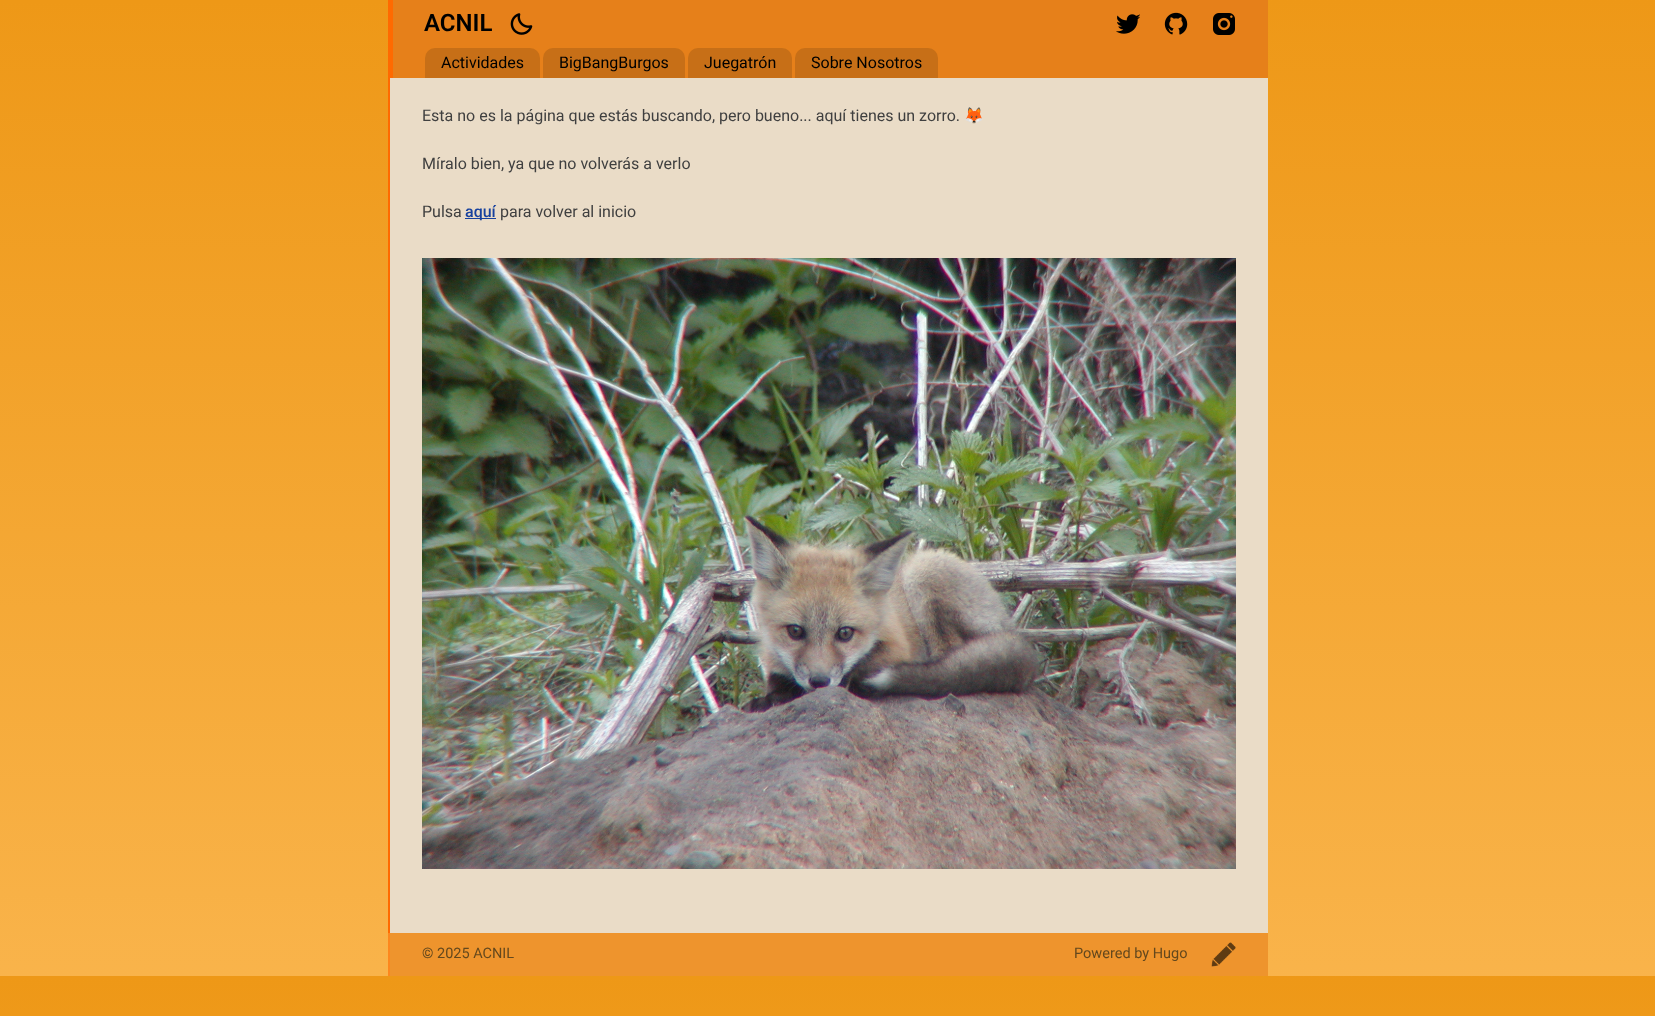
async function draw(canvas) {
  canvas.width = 1655;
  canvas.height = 1016;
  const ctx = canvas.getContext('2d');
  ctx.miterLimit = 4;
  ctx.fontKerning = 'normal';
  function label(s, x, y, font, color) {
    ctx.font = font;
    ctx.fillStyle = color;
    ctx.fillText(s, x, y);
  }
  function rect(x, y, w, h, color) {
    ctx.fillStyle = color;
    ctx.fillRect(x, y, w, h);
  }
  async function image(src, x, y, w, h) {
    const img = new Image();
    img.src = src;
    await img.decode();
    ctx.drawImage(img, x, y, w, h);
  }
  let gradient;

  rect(0, 0, 1655, 1016, '#fff');
  gradient = ctx.createLinearGradient(827, 0, 828, 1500);
  gradient.addColorStop(0, '#ee9817');
  gradient.addColorStop(1, '#ffc266');
  ctx.fillStyle = gradient;
  ctx.fillRect(0, 0, 1655, 976);
  gradient = ctx.createLinearGradient(827, 976, 828, 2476);
  gradient.addColorStop(0, '#ee9817');
  gradient.addColorStop(1, '#ffc266');
  ctx.fillStyle = gradient;
  ctx.fillRect(0, 976, 1655, 40);
  rect(393, 0, 875, 78, '#e6801a');
  label('ACNIL', 424, 31, '600 24px Roboto', '#000');
  await image('assets/img1.png', 510, 13, 23, 22);
  await image('assets/img2.png', 1116, 14, 24, 20);
  await image('assets/img3.png', 1164, 12, 24, 23);
  await image('assets/img4.png', 1213, 13, 22, 22);
  rect(388, 0, 5, 78, '#ff6a00');
  ctx.fillStyle = '#c76f17';
  ctx.beginPath();
  ctx.roundRect(425, 48, 115, 30, [10, 10, 0, 0]);
  ctx.fill();
  label('Actividades', 441, 68, '16px Roboto', '#000');
  ctx.fillStyle = '#c76f17';
  ctx.beginPath();
  ctx.roundRect(543, 48, 142, 30, [10, 10, 0, 0]);
  ctx.fill();
  label('BigBangBurgos', 559, 68, '16px Roboto', '#000');
  ctx.fillStyle = '#c76f17';
  ctx.beginPath();
  ctx.roundRect(688, 48, 104, 30, [10, 10, 0, 0]);
  ctx.fill();
  label('Juegatrón', 704, 68, '16px Roboto', '#000');
  ctx.fillStyle = '#c76f17';
  ctx.beginPath();
  ctx.roundRect(795, 48, 143, 30, [10, 10, 0, 0]);
  ctx.fill();
  label('Sobre Nosotros', 811, 68, '16px Roboto', '#000');
  rect(390, 78, 878, 855, '#eadcc7');
  rect(388, 78, 2, 855, '#ff6a00');
  label('Esta no es la página que estás buscando, pero bueno... aquí tienes un zorro.', 422, 121, '16px Roboto', '#404040');
  label('🦊', 964, 121, '16px Noto Color Emoji', '#404040');
  label('Míralo bien, ya que no volverás a verlo', 422, 169, '16px Roboto', '#404040');
  label('Pulsa', 422, 217, '16px Roboto', '#404040');
  rect(465, 218, 31, 1, '#17419e');
  label('aquí', 465, 217, '500 16px Roboto', '#17419e');
  label('para volver al inicio', 500, 217, '16px Roboto', '#404040');
  await image('assets/img5.png', 422, 258, 814, 611);
  rect(390, 933, 878, 43, '#ee942d');
  rect(388, 933, 2, 43, '#fd871d');
  label('© 2025 ACNIL', 422, 958, '14.5px Roboto', '#64481d');
  label('Powered by Hugo️️', 1074, 958, '14.5px Roboto', '#64481d');
  await image('assets/img6.png', 1211, 942, 25, 25);
}

draw(document.querySelector('canvas'));
